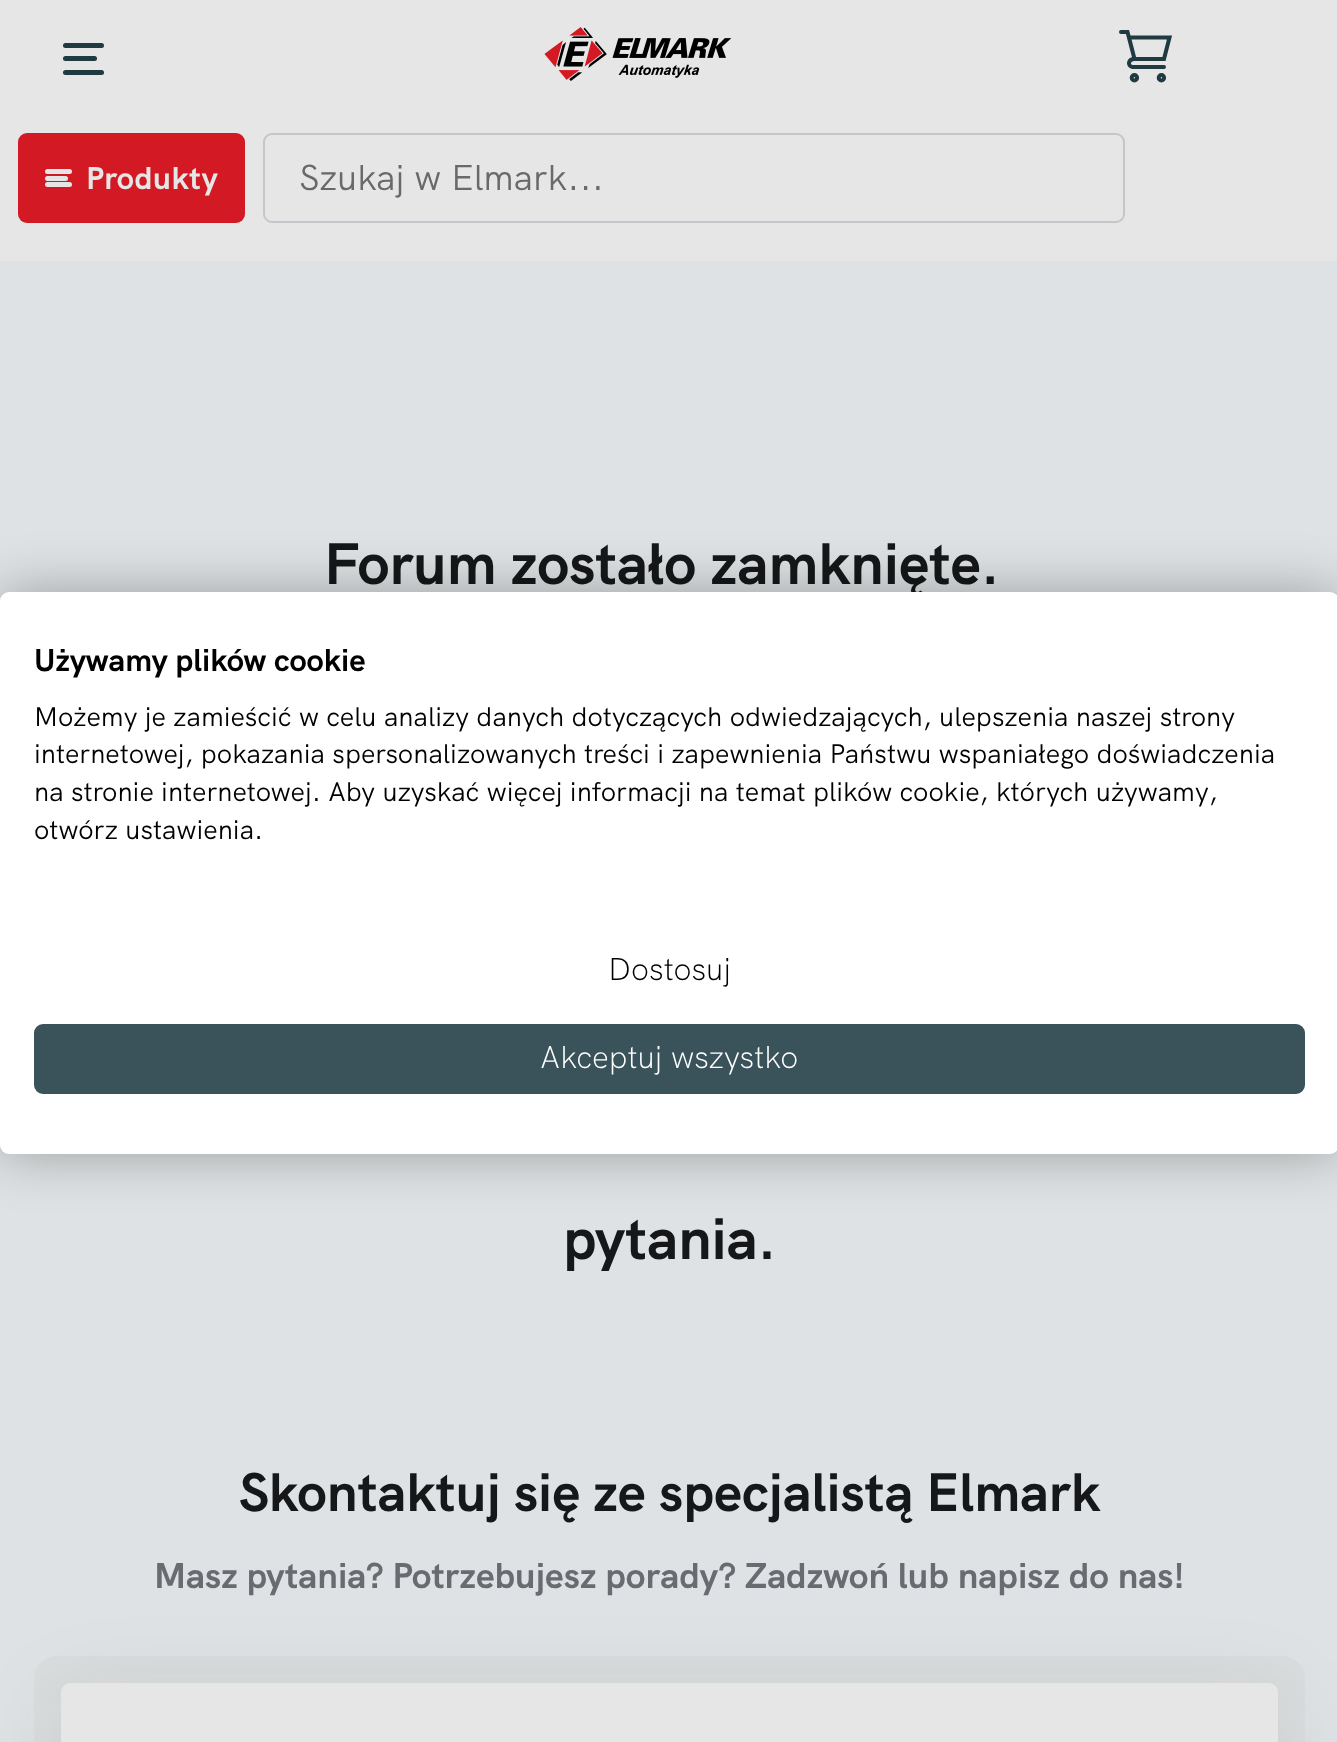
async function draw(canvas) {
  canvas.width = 1337;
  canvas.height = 1742;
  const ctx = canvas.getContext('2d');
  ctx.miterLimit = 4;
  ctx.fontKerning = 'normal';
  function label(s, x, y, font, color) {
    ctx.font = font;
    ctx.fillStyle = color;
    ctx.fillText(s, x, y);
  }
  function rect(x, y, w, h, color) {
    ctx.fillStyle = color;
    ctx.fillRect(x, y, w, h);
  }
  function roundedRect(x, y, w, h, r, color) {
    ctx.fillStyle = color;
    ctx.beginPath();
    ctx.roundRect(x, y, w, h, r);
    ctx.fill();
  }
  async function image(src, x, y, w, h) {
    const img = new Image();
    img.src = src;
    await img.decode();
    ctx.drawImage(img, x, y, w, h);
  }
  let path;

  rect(0, 0, 1337, 1742, '#dfe2e4');
  rect(0, 0, 1337, 261, '#e6e6e6');
  roundedRect(63, 56, 34, 5, 2.5, '#203a42');
  roundedRect(63, 43, 41, 5, 2.5, '#203a42');
  roundedRect(63, 70, 41, 5, 2.5, '#203a42');
  await image('assets/img1.png', 544, 27, 188, 54);
  path = new Path2D('M1121 32H1127.5L1134.5 59C1128 59 1127 66 1132.5 67H1164M1129 37.5H1169.5L1164 59H1134.5Z');
  ctx.strokeStyle = '#203a42';
  ctx.lineWidth = 4;
  ctx.lineCap = 'round';
  ctx.stroke(path);
  ctx.beginPath();
  ctx.arc(1134.4, 77.8, 2.7, 0, 2 * Math.PI);
  ctx.stroke();
  ctx.beginPath();
  ctx.arc(1161.4, 77.8, 2.7, 0, 2 * Math.PI);
  ctx.stroke();
  roundedRect(18, 133, 227, 90, 9, '#d31a24');
  roundedRect(45, 176, 23, 5, 2.5, '#e6e6e6');
  roundedRect(45, 169, 27, 5, 2.5, '#e6e6e6');
  roundedRect(45, 182, 27, 5, 2.5, '#e6e6e6');
  ctx.letterSpacing = '0.5px';
  label('Produkty', 86, 189, 'bold 31.5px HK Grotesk', '#e6e6e6');
  ctx.beginPath();
  ctx.roundRect(264, 134, 860, 88, 8);
  ctx.strokeStyle = '#c3c7cb';
  ctx.lineWidth = 2;
  ctx.stroke();
  ctx.letterSpacing = '0px';
  label('Szukaj w Elmark...', 299, 190, '36px HK Grotesk', '#696969');
  label('Forum zostało zamknięte.', 324, 584, 'bold 58.5px HK Grotesk', '#161718');
  label('pytania.', 563, 1259, 'bold 58.5px HK Grotesk', '#161718');
  label('Skontaktuj się ze specjalistą Elmark', 239, 1511, 'bold 54px HK Grotesk', '#161718');
  label('Masz pytania? Potrzebujesz porady? Zadzwoń lub napisz do nas!', 154, 1588, 'bold 36px HK Grotesk', '#686c70');
  roundedRect(34, 1656, 1271, 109, 23, '#daddde');
  ctx.fillStyle = '#1010111a';
  ctx.filter = 'blur(45px)';
  ctx.beginPath();
  ctx.roundRect(61, 1703, 1217, 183, 9);
  ctx.fill();
  ctx.filter = 'none';
  roundedRect(61, 1683, 1217, 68, 9, '#e6e6e6');
  ctx.fillStyle = '#0000004d';
  ctx.filter = 'blur(27px)';
  ctx.beginPath();
  ctx.roundRect(0, 592, 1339, 562, 9);
  ctx.fill();
  ctx.filter = 'none';
  roundedRect(0, 592, 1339, 562, 9, '#fff');
  label('Używamy plików cookie', 34, 671, 'bold 31.5px HK Grotesk', '#000');
  label('Możemy je zamieścić w celu analizy danych dotyczących odwiedzających, ulepszenia naszej strony', 34, 726, '27px HK Grotesk', '#000');
  label('internetowej, pokazania spersonalizowanych treści i zapewnienia Państwu wspaniałego doświadczenia', 34, 763, '27px HK Grotesk', '#000');
  label('na stronie internetowej. Aby uzyskać więcej informacji na temat plików cookie, których używamy,', 34, 801, '27px HK Grotesk', '#000');
  label('otwórz ustawienia.', 34, 839, '27px HK Grotesk', '#000');
  label('Dostosuj', 608, 980, '300 31.5px HK Grotesk', '#000');
  ctx.fillStyle = '#3a535b';
  ctx.beginPath();
  ctx.roundRect(35, 1025, 1269, 68, 8);
  ctx.fill();
  ctx.strokeStyle = '#3a535b';
  ctx.stroke();
  label('Akceptuj wszystko', 540, 1068, '300 31.5px HK Grotesk', '#fff');
}

draw(document.querySelector('canvas'));
